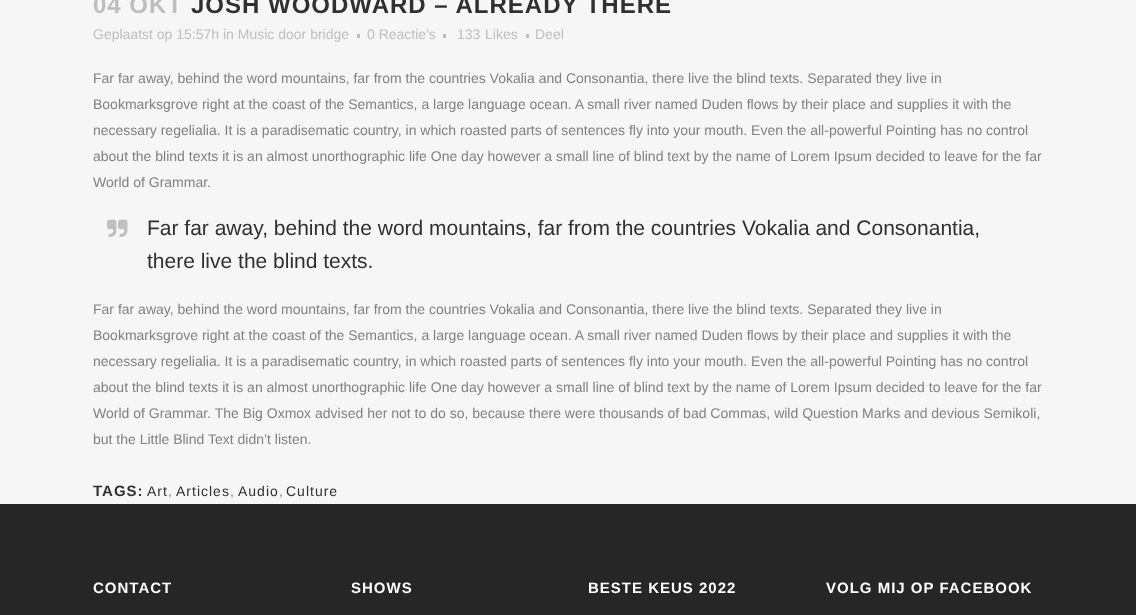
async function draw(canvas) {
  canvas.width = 1136;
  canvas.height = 615;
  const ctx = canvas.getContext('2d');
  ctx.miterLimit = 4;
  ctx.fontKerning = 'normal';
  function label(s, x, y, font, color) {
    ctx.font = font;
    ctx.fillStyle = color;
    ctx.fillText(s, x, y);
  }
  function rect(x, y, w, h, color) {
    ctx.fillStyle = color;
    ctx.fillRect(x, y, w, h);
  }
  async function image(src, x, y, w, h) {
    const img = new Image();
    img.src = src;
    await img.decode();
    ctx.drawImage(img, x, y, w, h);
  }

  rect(0, 0, 1136, 615, '#f6f6f6');
  ctx.letterSpacing = '1px';
  label('04 OKT', 93, 13, 'bold 24px Liberation Sans', '#bebebe');
  label('JOSH WOODWARD – ALREADY THERE', 191, 13, 'bold 24px Liberation Sans', '#303030');
  ctx.letterSpacing = '0px';
  label('Geplaatst op 15:57h in Music door bridge', 93, 39, '14px Liberation Sans', '#bebebe');
  rect(357, 34, 3, 4, '#bebebe');
  label('0 Reactie\'s', 367, 39, '14px Liberation Sans', '#bebebe');
  rect(443, 34, 3, 4, '#bebebe');
  label('133', 457, 39, '14px Liberation Sans', '#bebebe');
  label('Likes', 485, 39, '14px Liberation Sans', '#bebebe');
  rect(526, 34, 3, 4, '#bebebe');
  label('Deel', 535, 39, '14px Liberation Sans', '#bebebe');
  label('Far far away, behind the word mountains, far from the countries Vokalia and Consonantia, there live the blind texts. Separated they live in', 93, 83, '14px Liberation Sans', '#818181');
  label('Bookmarksgrove right at the coast of the Semantics, a large language ocean. A small river named Duden flows by their place and supplies it with the', 93, 109, '14px Liberation Sans', '#818181');
  label('necessary regelialia. It is a paradisematic country, in which roasted parts of sentences fly into your mouth. Even the all-powerful Pointing has no control', 93, 135, '14px Liberation Sans', '#818181');
  label('about the blind texts it is an almost unorthographic life One day however a small line of blind text by the name of Lorem Ipsum decided to leave for the far', 93, 161, '14px Liberation Sans', '#818181');
  label('World of Grammar.', 93, 187, '14px Liberation Sans', '#818181');
  await image('assets/img1.png', 107, 219, 21, 18);
  label('Far far away, behind the word mountains, far from the countries Vokalia and Consonantia,', 147, 235, '21px Liberation Sans', '#303030');
  label('there live the blind texts.', 147, 268, '21px Liberation Sans', '#303030');
  label('Far far away, behind the word mountains, far from the countries Vokalia and Consonantia, there live the blind texts. Separated they live in', 93, 314, '14px Liberation Sans', '#818181');
  label('Bookmarksgrove right at the coast of the Semantics, a large language ocean. A small river named Duden flows by their place and supplies it with the', 93, 340, '14px Liberation Sans', '#818181');
  label('necessary regelialia. It is a paradisematic country, in which roasted parts of sentences fly into your mouth. Even the all-powerful Pointing has no control', 93, 366, '14px Liberation Sans', '#818181');
  label('about the blind texts it is an almost unorthographic life One day however a small line of blind text by the name of Lorem Ipsum decided to leave for the far', 93, 392, '14px Liberation Sans', '#818181');
  label('World of Grammar. The Big Oxmox advised her not to do so, because there were thousands of bad Commas, wild Question Marks and devious Semikoli,', 93, 418, '14px Liberation Sans', '#818181');
  label('but the Little Blind Text didn’t listen.', 93, 444, '14px Liberation Sans', '#818181');
  ctx.letterSpacing = '1px';
  label('TAGS:', 93, 496, 'bold 15px Liberation Sans', '#303030');
  label('Art', 147, 496, '14px Liberation Sans', '#303030');
  ctx.letterSpacing = '0px';
  label(',', 168, 496, '14px Liberation Sans', '#818181');
  ctx.letterSpacing = '1px';
  label('Articles', 176, 496, '14px Liberation Sans', '#303030');
  ctx.letterSpacing = '0px';
  label(',', 230, 496, '14px Liberation Sans', '#818181');
  ctx.letterSpacing = '1px';
  label('Audio', 238, 496, '14px Liberation Sans', '#303030');
  ctx.letterSpacing = '0px';
  label(',', 279, 496, '14px Liberation Sans', '#818181');
  ctx.letterSpacing = '1px';
  label('Culture', 286, 496, '14px Liberation Sans', '#303030');
  rect(0, 504, 1136, 111, '#262626');
  label('CONTACT', 93, 593, 'bold 15px Liberation Sans', '#fff');
  label('SHOWS', 351, 593, 'bold 15px Liberation Sans', '#fff');
  label('BESTE KEUS 2022', 588, 593, 'bold 15px Liberation Sans', '#fff');
  label('VOLG MIJ OP FACEBOOK', 826, 593, 'bold 15px Liberation Sans', '#fff');
}

draw(document.querySelector('canvas'));
